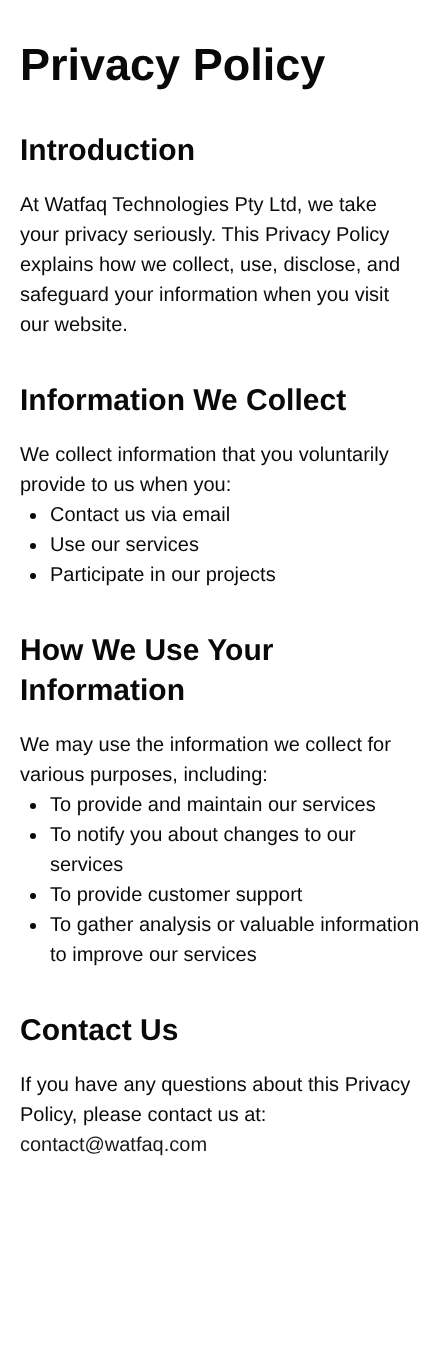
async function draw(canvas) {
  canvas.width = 441;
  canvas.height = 1372;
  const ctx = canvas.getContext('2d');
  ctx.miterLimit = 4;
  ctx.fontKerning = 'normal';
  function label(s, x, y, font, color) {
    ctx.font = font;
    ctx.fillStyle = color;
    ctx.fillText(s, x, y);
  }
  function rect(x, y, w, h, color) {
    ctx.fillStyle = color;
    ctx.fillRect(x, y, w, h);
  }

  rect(0, 0, 441, 1372, '#fff');
  label('Privacy Policy', 20, 80, 'bold 45px Liberation Sans', '#09090b');
  label('Introduction', 20, 160, 'bold 30px Liberation Sans', '#09090b');
  label('At Watfaq Technologies Pty Ltd, we take', 20, 211, '20px Liberation Sans', '#09090b');
  label('your privacy seriously. This Privacy Policy', 20, 241, '20px Liberation Sans', '#09090b');
  label('explains how we collect, use, disclose, and', 20, 271, '20px Liberation Sans', '#09090b');
  label('safeguard your information when you visit', 20, 301, '20px Liberation Sans', '#09090b');
  label('our website.', 20, 331, '20px Liberation Sans', '#09090b');
  label('Information We Collect', 20, 410, 'bold 30px Liberation Sans', '#09090b');
  label('We collect information that you voluntarily', 20, 461, '20px Liberation Sans', '#09090b');
  label('provide to us when you:', 20, 491, '20px Liberation Sans', '#09090b');
  ctx.beginPath();
  ctx.arc(33, 516, 3, 0, 2 * Math.PI);
  ctx.fill();
  label('Contact us via email', 50, 521, '20px Liberation Sans', '#09090b');
  ctx.beginPath();
  ctx.arc(33, 546, 3, 0, 2 * Math.PI);
  ctx.fill();
  label('Use our services', 50, 551, '20px Liberation Sans', '#09090b');
  ctx.beginPath();
  ctx.arc(33, 576, 3, 0, 2 * Math.PI);
  ctx.fill();
  label('Participate in our projects', 50, 581, '20px Liberation Sans', '#09090b');
  label('How We Use Your', 20, 660, 'bold 30px Liberation Sans', '#09090b');
  label('Information', 20, 700, 'bold 30px Liberation Sans', '#09090b');
  label('We may use the information we collect for', 20, 751, '20px Liberation Sans', '#09090b');
  label('various purposes, including:', 20, 781, '20px Liberation Sans', '#09090b');
  ctx.beginPath();
  ctx.arc(33, 806, 3, 0, 2 * Math.PI);
  ctx.fill();
  label('To provide and maintain our services', 50, 811, '20px Liberation Sans', '#09090b');
  ctx.beginPath();
  ctx.arc(33, 836, 3, 0, 2 * Math.PI);
  ctx.fill();
  label('To notify you about changes to our', 50, 841, '20px Liberation Sans', '#09090b');
  label('services', 50, 871, '20px Liberation Sans', '#09090b');
  ctx.beginPath();
  ctx.arc(33, 896, 3, 0, 2 * Math.PI);
  ctx.fill();
  label('To provide customer support', 50, 901, '20px Liberation Sans', '#09090b');
  ctx.beginPath();
  ctx.arc(33, 926, 3, 0, 2 * Math.PI);
  ctx.fill();
  label('To gather analysis or valuable information', 50, 931, '20px Liberation Sans', '#09090b');
  label('to improve our services', 50, 961, '20px Liberation Sans', '#09090b');
  label('Contact Us', 20, 1040, 'bold 30px Liberation Sans', '#09090b');
  label('If you have any questions about this Privacy', 20, 1091, '20px Liberation Sans', '#09090b');
  label('Policy, please contact us at:', 20, 1121, '20px Liberation Sans', '#09090b');
  label('contact@watfaq.com', 20, 1151, '20px Liberation Sans', '#18181b');
}

draw(document.querySelector('canvas'));
